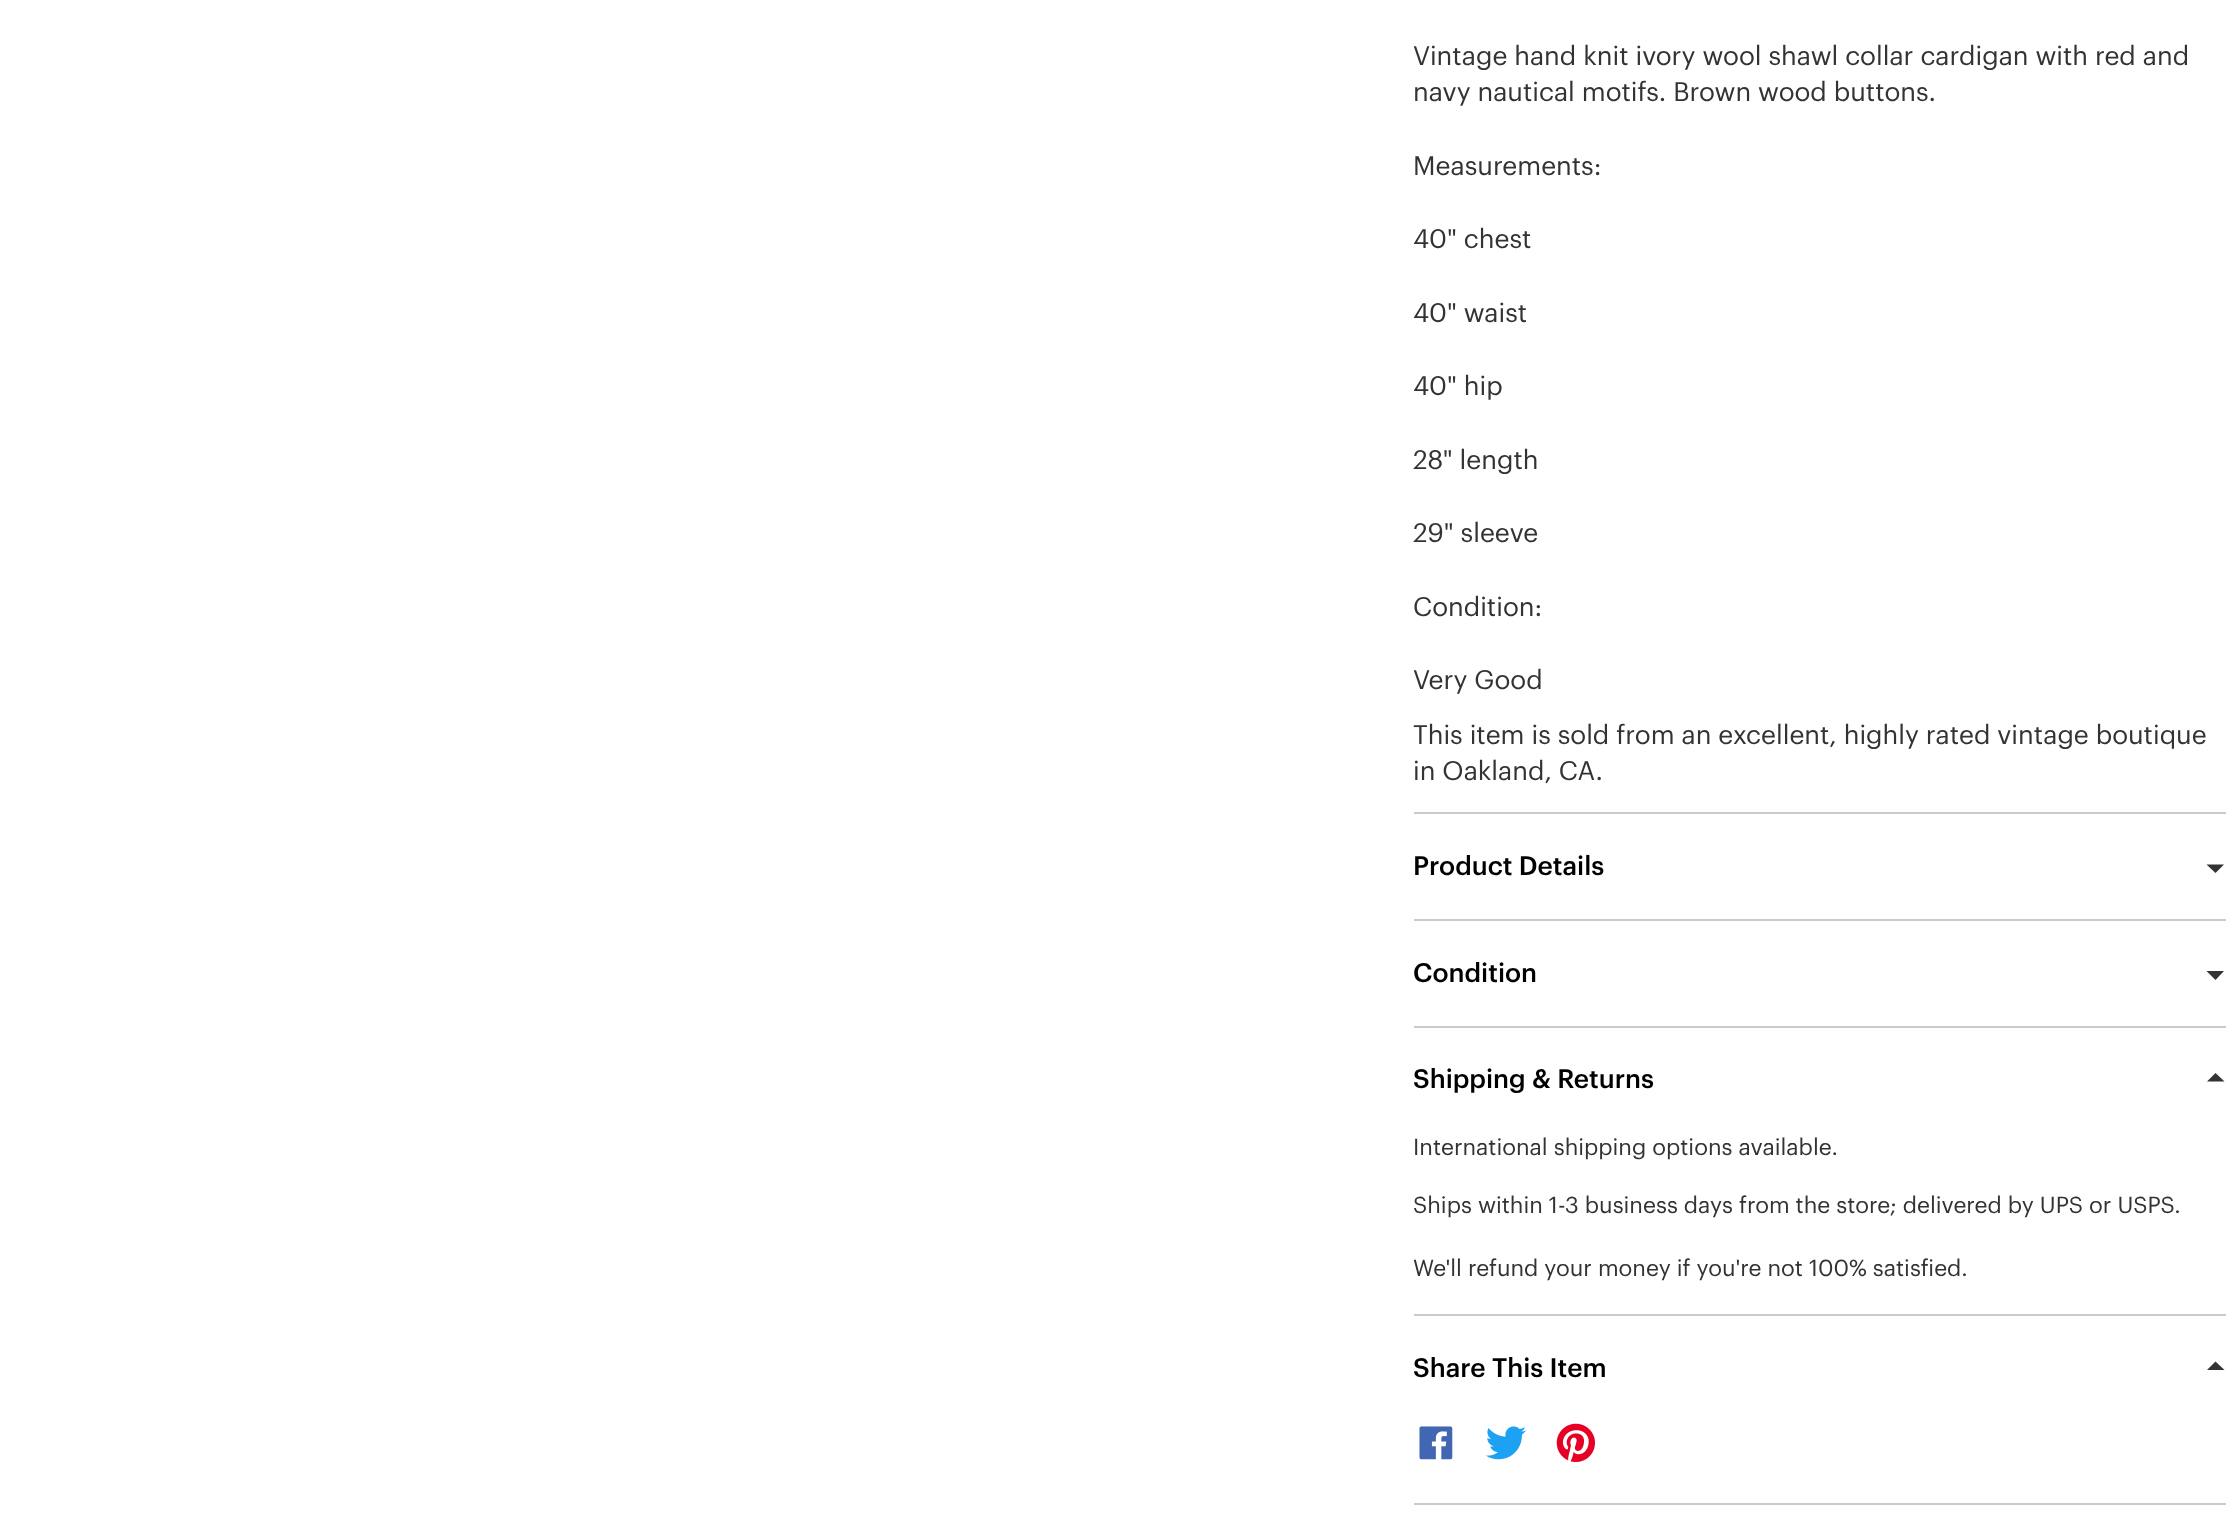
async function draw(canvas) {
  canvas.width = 2226;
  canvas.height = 1513;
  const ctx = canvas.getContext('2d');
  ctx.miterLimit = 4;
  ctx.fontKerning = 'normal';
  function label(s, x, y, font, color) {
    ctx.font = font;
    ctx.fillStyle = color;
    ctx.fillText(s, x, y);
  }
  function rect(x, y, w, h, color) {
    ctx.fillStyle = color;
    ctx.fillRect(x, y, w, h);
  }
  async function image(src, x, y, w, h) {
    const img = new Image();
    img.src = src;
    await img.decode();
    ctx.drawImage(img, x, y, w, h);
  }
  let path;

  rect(0, 0, 2226, 1513, '#fff');
  label('Vintage hand knit ivory wool shawl collar cardigan with red and', 1413, 65, '26.25px Graphik', '#333');
  label('navy nautical motifs. Brown wood buttons.', 1413, 101, '26.25px Graphik', '#333');
  label('Measurements:', 1413, 175, '26.25px Graphik', '#333');
  label('40" chest', 1413, 248, '26.25px Graphik', '#333');
  label('40" waist', 1413, 322, '26.25px Graphik', '#333');
  label('40" hip', 1413, 395, '26.25px Graphik', '#333');
  label('28" length', 1413, 469, '26.25px Graphik', '#333');
  label('29" sleeve', 1413, 542, '26.25px Graphik', '#333');
  label('Condition:', 1413, 616, '26.25px Graphik', '#333');
  label('Very Good', 1413, 689, '26.25px Graphik', '#333');
  label('This item is sold from an excellent, highly rated vintage boutique', 1413, 744, '26.25px Graphik', '#333');
  label('in Oakland, CA.', 1413, 780, '26.25px Graphik', '#333');
  rect(1414, 812, 812, 2, '#cbcbcb');
  label('Product Details', 1413, 875, '500 26.25px Graphik', '#000');
  ctx.fillStyle = '#333';
  path = new Path2D('M2224 864.5L2215.5 873L2206.5 864.5Z');
  ctx.fill(path, 'evenodd');
  rect(1414, 919, 812, 2, '#cbcbcb');
  label('Condition', 1413, 982, '500 26.25px Graphik', '#000');
  ctx.fillStyle = '#333';
  path = new Path2D('M2224 971L2215.5 980L2206.5 971Z');
  ctx.fill(path, 'evenodd');
  rect(1414, 1026, 812, 2, '#cbcbcb');
  label('Shipping & Returns', 1413, 1088, '500 26.25px Graphik', '#000');
  ctx.fillStyle = '#333';
  path = new Path2D('M2207 1081.5L2215.5 1073L2224.5 1081.5Z');
  ctx.fill(path, 'evenodd');
  label('International shipping options available.', 1413, 1155, '22.75px Graphik', '#333');
  label('Ships within 1-3 business days from the store; delivered by UPS or USPS.', 1413, 1213, '22.75px Graphik', '#333');
  label('We\'ll refund your money if you\'re not 100% satisfied.', 1413, 1276, '22.75px Graphik', '#333');
  rect(1414, 1314, 812, 2, '#cbcbcb');
  label('Share This Item', 1413, 1377, '500 26.25px Graphik', '#000');
  ctx.fillStyle = '#333';
  path = new Path2D('M2207 1370L2215.5 1361.5L2224.5 1370Z');
  ctx.fill(path, 'evenodd');
  await image('assets/img1.png', 1419, 1426, 34, 34);
  await image('assets/img2.png', 1485, 1426, 41, 34);
  await image('assets/img3.png', 1556, 1423, 39, 39);
  rect(1414, 1503, 812, 2, '#cbcbcb');
}

draw(document.querySelector('canvas'));
